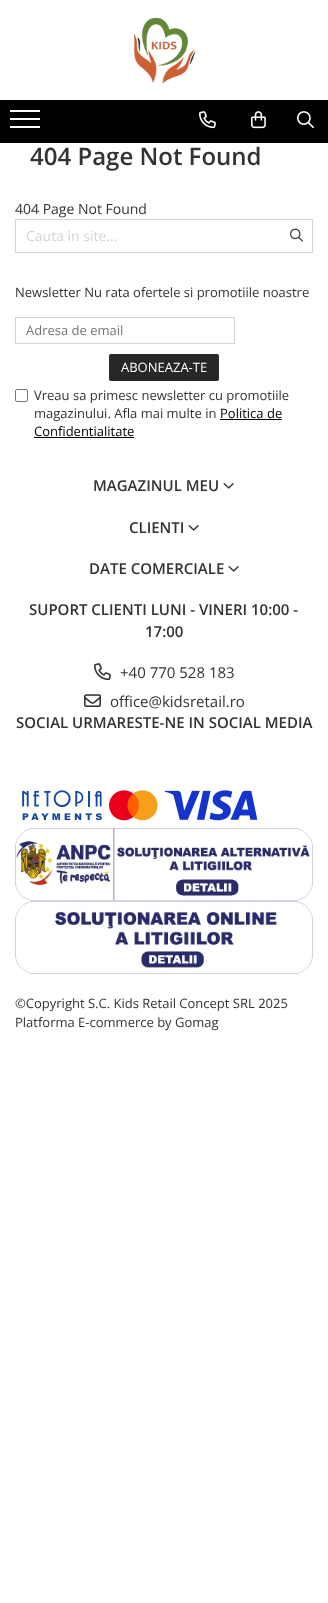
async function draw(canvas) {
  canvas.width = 328;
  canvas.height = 1603;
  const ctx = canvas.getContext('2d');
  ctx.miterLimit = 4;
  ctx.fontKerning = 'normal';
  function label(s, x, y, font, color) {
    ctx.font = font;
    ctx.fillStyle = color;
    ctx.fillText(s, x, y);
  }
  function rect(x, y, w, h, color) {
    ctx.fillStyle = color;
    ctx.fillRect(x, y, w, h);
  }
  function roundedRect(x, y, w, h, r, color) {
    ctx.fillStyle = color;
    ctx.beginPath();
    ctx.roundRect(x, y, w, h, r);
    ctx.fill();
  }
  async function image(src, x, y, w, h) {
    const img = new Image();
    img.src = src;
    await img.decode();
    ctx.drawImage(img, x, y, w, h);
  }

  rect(0, 0, 328, 1603, '#fff');
  await image('assets/img1.png', 134, 17, 62, 67);
  rect(0, 100, 328, 43, '#000');
  rect(10, 118, 30, 2, '#fff');
  rect(10, 110, 30, 2, '#fff');
  rect(10, 126, 30, 2, '#fff');
  await image('assets/img2.png', 199, 111, 17, 18);
  await image('assets/img3.png', 251, 111, 15, 18);
  await image('assets/img4.png', 297, 111, 17, 18);
  label('404 Page Not Found', 30, 165, '600 24px Open Sans', '#333');
  label('404 Page Not Found', 15, 214, '14px Open Sans', '#333');
  ctx.strokeStyle = '#d5d5d5';
  ctx.strokeRect(15.5, 219.5, 297, 33);
  label('Cauta in site...', 26, 241, '14px Open Sans', '#d5d5d5');
  await image('assets/img5.png', 290, 228, 13, 14);
  label('Newsletter Nu rata ofertele si promotiile noastre', 15, 297, '13px Open Sans', '#333');
  ctx.strokeRect(15.5, 317.5, 219, 26);
  label('Adresa de email', 26, 335, '13px Open Sans', '#757575');
  roundedRect(109, 354, 110, 27, 2, '#272727');
  label('ABONEAZA-TE', 121, 372, '13px Open Sans', '#fff');
  ctx.beginPath();
  ctx.roundRect(15.5, 389.5, 12, 12, 1.5);
  ctx.strokeStyle = '#767676';
  ctx.stroke();
  label('Vreau sa primesc newsletter cu promotiile', 34, 400, '13px Open Sans', '#333');
  label('magazinului. Afla mai multe in', 34, 418, '13px Open Sans', '#333');
  label('Politica de', 220, 418, '13px Open Sans', '#000');
  rect(220, 419, 62, 1, '#000');
  label('Confidentialitate', 34, 436, '13px Open Sans', '#000');
  rect(34, 437, 100, 1, '#000');
  label('MAGAZINUL MEU', 93, 491, '600 15px Open Sans', '#333');
  await image('assets/img6.png', 223, 483, 11, 6);
  label('CLIENTI', 129, 533, '600 15px Open Sans', '#333');
  await image('assets/img6.png', 188, 525, 11, 6);
  label('DATE COMERCIALE', 89, 574, '600 15px Open Sans', '#333');
  await image('assets/img6.png', 228, 566, 11, 6);
  label('SUPORT CLIENTI LUNI - VINERI 10:00 -', 29, 615, '600 15px Open Sans', '#333');
  label('17:00', 145, 637, '600 15px Open Sans', '#333');
  await image('assets/img7.png', 94, 663, 17, 18);
  label('+40 770 528 183', 120, 678, '15px Open Sans', '#333');
  await image('assets/img8.png', 84, 694, 17, 13);
  label('office@kidsretail.ro', 110, 707, '15px Open Sans', '#333');
  label('SOCIAL URMARESTE-NE IN SOCIAL MEDIA', 16, 728, '600 15px Open Sans', '#333');
  await image('assets/img9.png', 22, 790, 236, 31);
  await image('assets/img10.png', 15, 828, 298, 73);
  await image('assets/img11.png', 15, 901, 298, 73);
  label('©Copyright S.C. Kids Retail Concept SRL 2025', 15, 1008, '13px Open Sans', '#333');
  label('Platforma E-commerce by Gomag', 15, 1027, '13px Open Sans', '#333');
}

draw(document.querySelector('canvas'));
